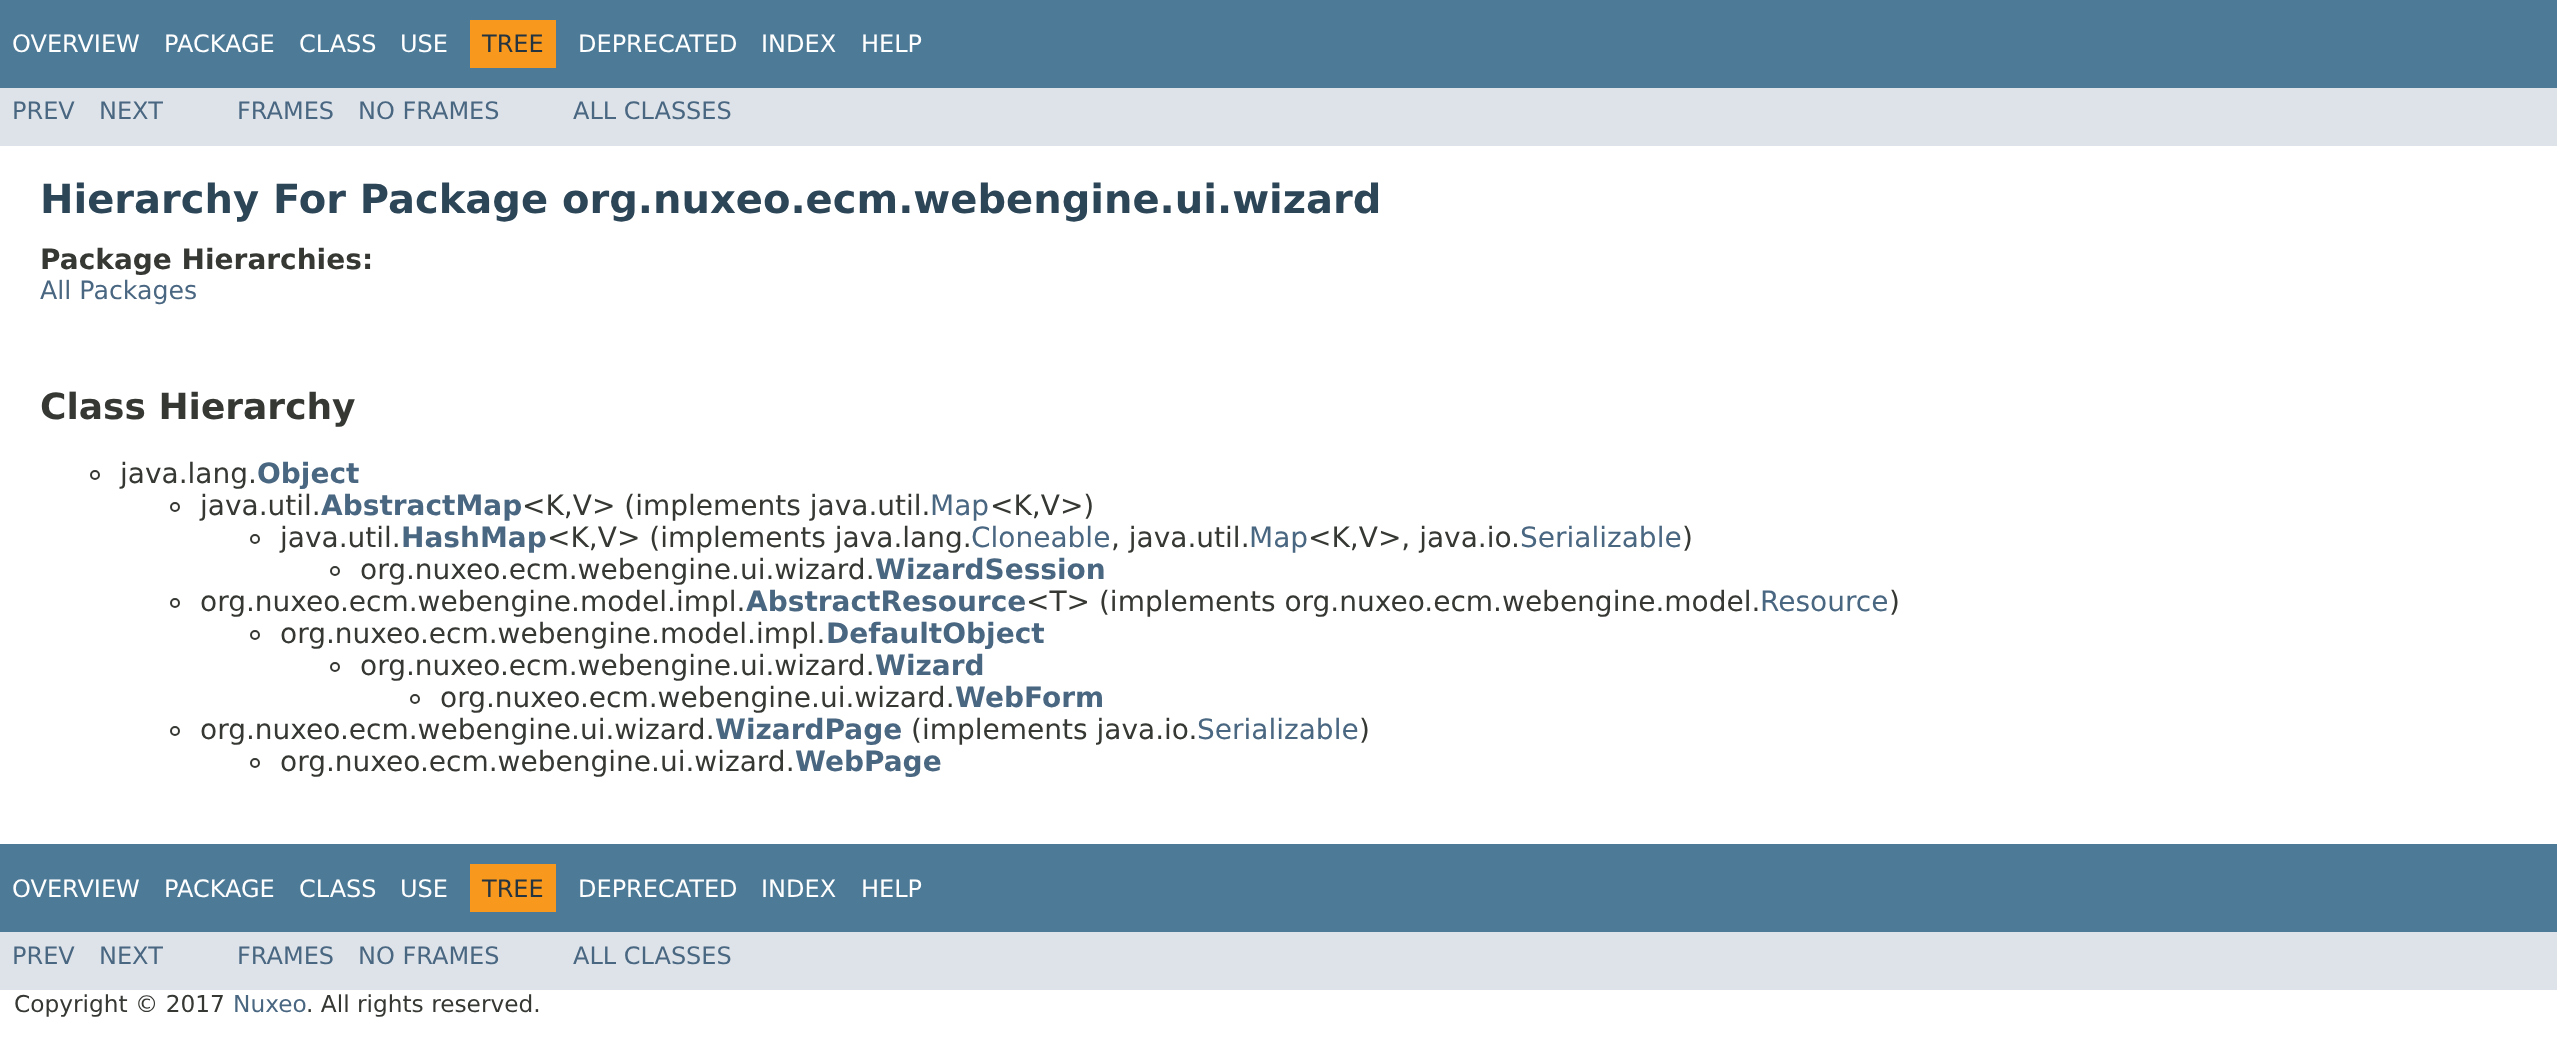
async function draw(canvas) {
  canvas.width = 2557;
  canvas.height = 1038;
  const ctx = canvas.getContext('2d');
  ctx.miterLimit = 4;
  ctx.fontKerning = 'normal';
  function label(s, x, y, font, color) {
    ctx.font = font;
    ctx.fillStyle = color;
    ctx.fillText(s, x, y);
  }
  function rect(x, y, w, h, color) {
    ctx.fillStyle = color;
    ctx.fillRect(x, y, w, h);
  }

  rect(0, 0, 2557, 1038, '#fff');
  rect(0, 0, 2557, 88, '#4d7a97');
  label('OVERVIEW', 12, 52, '24px DejaVu Sans', '#fff');
  label('PACKAGE', 164, 52, '24px DejaVu Sans', '#fff');
  label('CLASS', 299, 52, '24px DejaVu Sans', '#fff');
  label('USE', 400, 52, '24px DejaVu Sans', '#fff');
  rect(470, 20, 86, 48, '#f8981d');
  label('TREE', 482, 52, '24px DejaVu Sans', '#253441');
  label('DEPRECATED', 578, 52, '24px DejaVu Sans', '#fff');
  label('INDEX', 761, 52, '24px DejaVu Sans', '#fff');
  label('HELP', 861, 52, '24px DejaVu Sans', '#fff');
  rect(0, 88, 2557, 58, '#dee3e9');
  label('PREV', 12, 119, '24px DejaVu Sans', '#4a6782');
  label('NEXT', 99, 119, '24px DejaVu Sans', '#4a6782');
  label('FRAMES', 237, 119, '24px DejaVu Sans', '#4a6782');
  label('NO FRAMES', 358, 119, '24px DejaVu Sans', '#4a6782');
  label('ALL CLASSES', 573, 119, '24px DejaVu Sans', '#4a6782');
  label('Hierarchy For Package org.nuxeo.ecm.webengine.ui.wizard', 40, 213, 'bold 40px DejaVu Sans', '#2c4557');
  label('Package Hierarchies:', 40, 269, 'bold 28px DejaVu Sans', '#353833');
  label('All Packages', 40, 299, '25.25px DejaVu Sans', '#4a6782');
  label('Class Hierarchy', 40, 419, 'bold 36px DejaVu Sans', '#353833');
  ctx.beginPath();
  ctx.arc(95, 475, 4, 0, 2 * Math.PI);
  ctx.strokeStyle = '#353833';
  ctx.lineWidth = 2;
  ctx.stroke();
  label('java.lang.', 120, 483, '28px DejaVu Sans', '#353833');
  label('Object', 257, 483, 'bold 28px DejaVu Sans', '#4a6782');
  ctx.beginPath();
  ctx.arc(175, 507, 4, 0, 2 * Math.PI);
  ctx.stroke();
  label('java.util.', 200, 515, '28px DejaVu Sans', '#353833');
  label('AbstractMap', 321, 515, 'bold 28px DejaVu Sans', '#4a6782');
  label('<K,V> (implements java.util.', 522, 515, '28px DejaVu Sans', '#353833');
  label('Map', 930, 515, '28px DejaVu Sans', '#4a6782');
  label('<K,V>)', 990, 515, '28px DejaVu Sans', '#353833');
  ctx.beginPath();
  ctx.arc(255, 539, 4, 0, 2 * Math.PI);
  ctx.stroke();
  label('java.util.', 280, 547, '28px DejaVu Sans', '#353833');
  label('HashMap', 401, 547, 'bold 28px DejaVu Sans', '#4a6782');
  label('<K,V> (implements java.lang.', 547, 547, '28px DejaVu Sans', '#353833');
  label('Cloneable', 971, 547, '28px DejaVu Sans', '#4a6782');
  label(', java.util.', 1111, 547, '28px DejaVu Sans', '#353833');
  label('Map', 1249, 547, '28px DejaVu Sans', '#4a6782');
  label('<K,V>, java.io.', 1308, 547, '28px DejaVu Sans', '#353833');
  label('Serializable', 1520, 547, '28px DejaVu Sans', '#4a6782');
  label(')', 1682, 547, '28px DejaVu Sans', '#353833');
  ctx.beginPath();
  ctx.arc(335, 571, 4, 0, 2 * Math.PI);
  ctx.stroke();
  label('org.nuxeo.ecm.webengine.ui.wizard.', 360, 579, '28px DejaVu Sans', '#353833');
  label('WizardSession', 875, 579, 'bold 28px DejaVu Sans', '#4a6782');
  ctx.beginPath();
  ctx.arc(175, 603, 4, 0, 2 * Math.PI);
  ctx.stroke();
  label('org.nuxeo.ecm.webengine.model.impl.', 200, 611, '28px DejaVu Sans', '#353833');
  label('AbstractResource', 746, 611, 'bold 28px DejaVu Sans', '#4a6782');
  label('<T> (implements org.nuxeo.ecm.webengine.model.', 1026, 611, '28px DejaVu Sans', '#353833');
  label('Resource', 1760, 611, '28px DejaVu Sans', '#4a6782');
  label(')', 1889, 611, '28px DejaVu Sans', '#353833');
  ctx.beginPath();
  ctx.arc(255, 635, 4, 0, 2 * Math.PI);
  ctx.stroke();
  label('org.nuxeo.ecm.webengine.model.impl.', 280, 643, '28px DejaVu Sans', '#353833');
  label('DefaultObject', 826, 643, 'bold 28px DejaVu Sans', '#4a6782');
  ctx.beginPath();
  ctx.arc(335, 667, 4, 0, 2 * Math.PI);
  ctx.stroke();
  label('org.nuxeo.ecm.webengine.ui.wizard.', 360, 675, '28px DejaVu Sans', '#353833');
  label('Wizard', 875, 675, 'bold 28px DejaVu Sans', '#4a6782');
  ctx.beginPath();
  ctx.arc(415, 699, 4, 0, 2 * Math.PI);
  ctx.stroke();
  label('org.nuxeo.ecm.webengine.ui.wizard.', 440, 707, '28px DejaVu Sans', '#353833');
  label('WebForm', 955, 707, 'bold 28px DejaVu Sans', '#4a6782');
  ctx.beginPath();
  ctx.arc(175, 731, 4, 0, 2 * Math.PI);
  ctx.stroke();
  label('org.nuxeo.ecm.webengine.ui.wizard.', 200, 739, '28px DejaVu Sans', '#353833');
  label('WizardPage', 715, 739, 'bold 28px DejaVu Sans', '#4a6782');
  label('(implements java.io.', 911, 739, '28px DejaVu Sans', '#353833');
  label('Serializable', 1197, 739, '28px DejaVu Sans', '#4a6782');
  label(')', 1359, 739, '28px DejaVu Sans', '#353833');
  ctx.beginPath();
  ctx.arc(255, 763, 4, 0, 2 * Math.PI);
  ctx.stroke();
  label('org.nuxeo.ecm.webengine.ui.wizard.', 280, 771, '28px DejaVu Sans', '#353833');
  label('WebPage', 795, 771, 'bold 28px DejaVu Sans', '#4a6782');
  rect(0, 844, 2557, 88, '#4d7a97');
  label('OVERVIEW', 12, 897, '24px DejaVu Sans', '#fff');
  label('PACKAGE', 164, 897, '24px DejaVu Sans', '#fff');
  label('CLASS', 299, 897, '24px DejaVu Sans', '#fff');
  label('USE', 400, 897, '24px DejaVu Sans', '#fff');
  rect(470, 864, 86, 48, '#f8981d');
  label('TREE', 482, 897, '24px DejaVu Sans', '#253441');
  label('DEPRECATED', 578, 897, '24px DejaVu Sans', '#fff');
  label('INDEX', 761, 897, '24px DejaVu Sans', '#fff');
  label('HELP', 861, 897, '24px DejaVu Sans', '#fff');
  rect(0, 932, 2557, 58, '#dee3e9');
  label('PREV', 12, 964, '24px DejaVu Sans', '#4a6782');
  label('NEXT', 99, 964, '24px DejaVu Sans', '#4a6782');
  label('FRAMES', 237, 964, '24px DejaVu Sans', '#4a6782');
  label('NO FRAMES', 358, 964, '24px DejaVu Sans', '#4a6782');
  label('ALL CLASSES', 573, 964, '24px DejaVu Sans', '#4a6782');
  label('Copyright © 2017', 14, 1012, '23.25px DejaVu Sans', '#353833');
  label('Nuxeo', 233, 1012, '23.25px DejaVu Sans', '#4a6782');
  label('. All rights reserved.', 306, 1012, '23.25px DejaVu Sans', '#353833');
}

draw(document.querySelector('canvas'));
